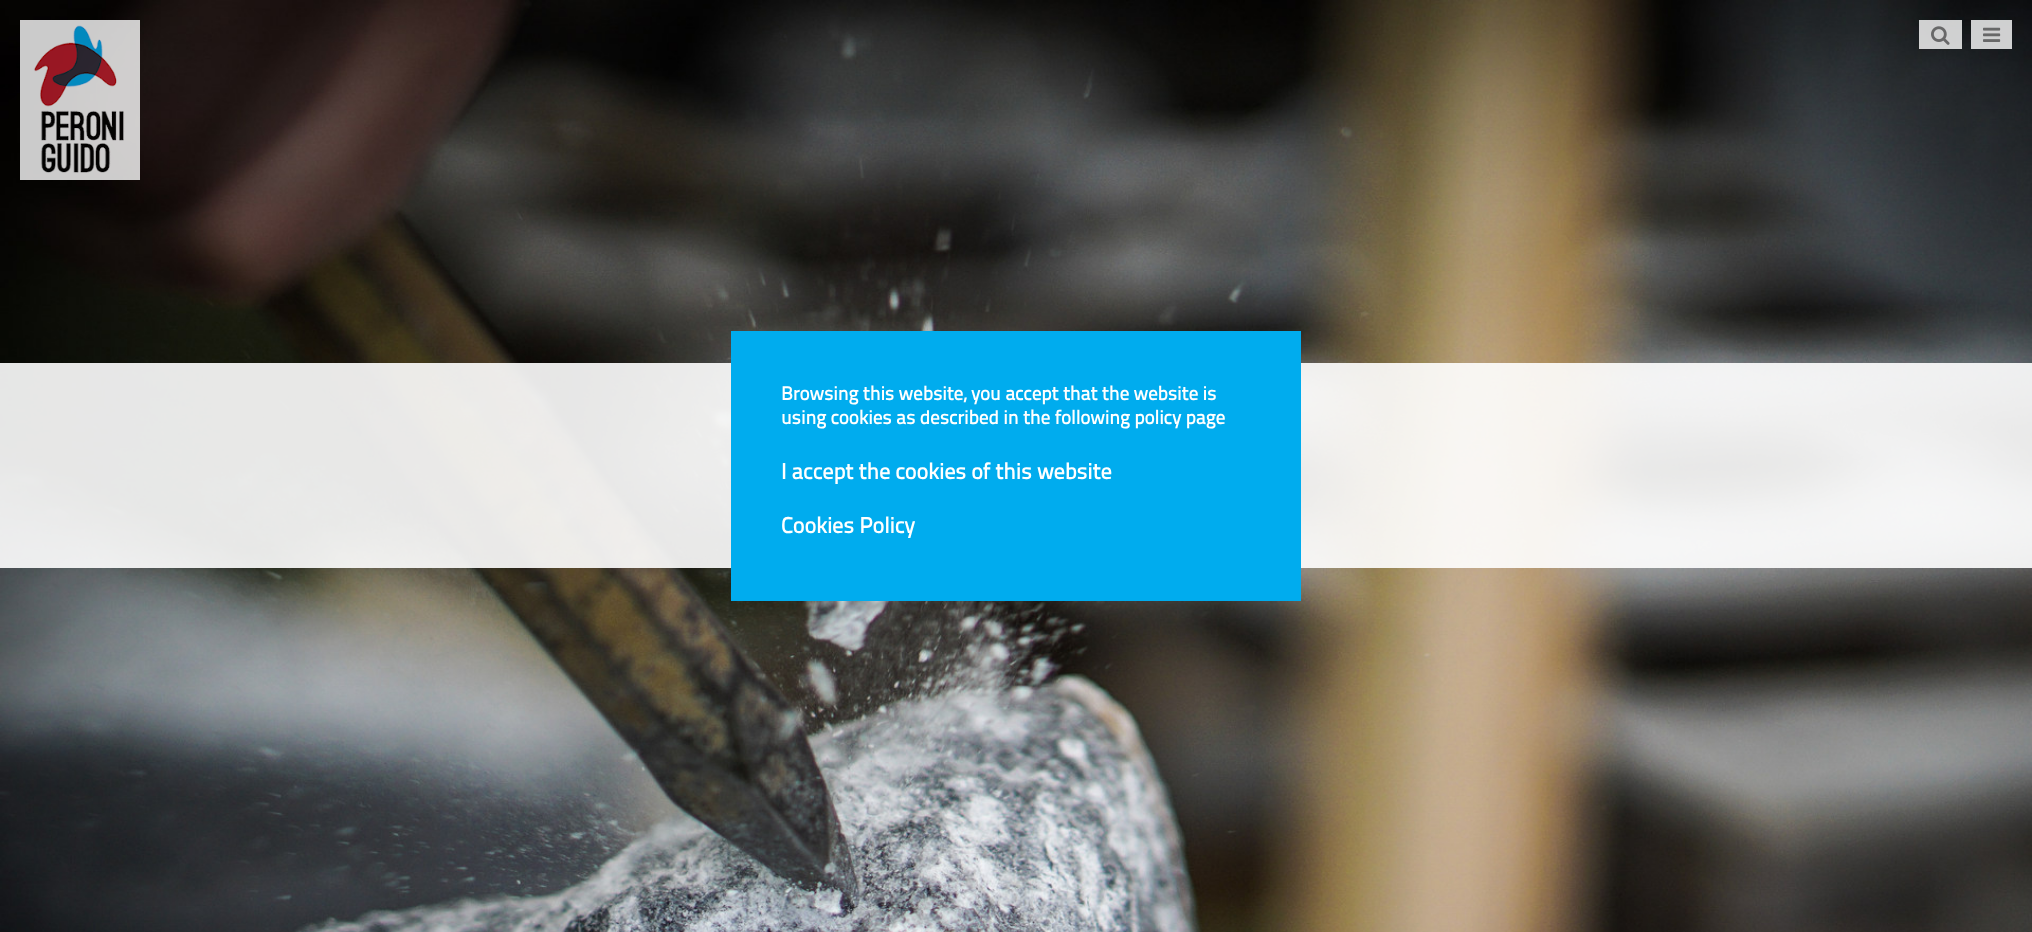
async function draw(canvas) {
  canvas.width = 2032;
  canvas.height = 932;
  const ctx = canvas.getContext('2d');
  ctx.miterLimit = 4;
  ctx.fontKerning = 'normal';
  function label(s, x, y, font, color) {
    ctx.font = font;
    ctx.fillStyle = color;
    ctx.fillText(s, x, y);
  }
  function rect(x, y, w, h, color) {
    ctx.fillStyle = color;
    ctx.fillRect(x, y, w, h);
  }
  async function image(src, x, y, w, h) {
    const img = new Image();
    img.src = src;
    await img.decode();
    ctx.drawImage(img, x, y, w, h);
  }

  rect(0, 0, 2032, 932, '#fff');
  await image('assets/img1.png', 0, 0, 2032, 932);
  rect(0, 363, 2032, 205, '#ffffffe6');
  await image('assets/img2.png', 20, 20, 120, 160);
  rect(1919, 20, 43, 29, '#ffffffcc');
  await image('assets/img3.png', 1931, 26, 19, 19);
  rect(1971, 20, 41, 29, '#ffffffcc');
  await image('assets/img4.png', 1983, 27, 18, 15);
  rect(731, 331, 570, 270, '#00acee');
  label('Browsing this website, you accept that the website is', 781, 400, 'bold 19px "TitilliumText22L"', '#fff');
  label('using cookies as described in the following policy page', 781, 424, 'bold 19px "TitilliumText22L"', '#fff');
  label('I accept the cookies of this website', 781, 479, 'bold 22px "TitilliumText22L"', '#fff');
  label('Cookies Policy', 781, 533, 'bold 22px "TitilliumText22L"', '#fff');
}

draw(document.querySelector('canvas'));
